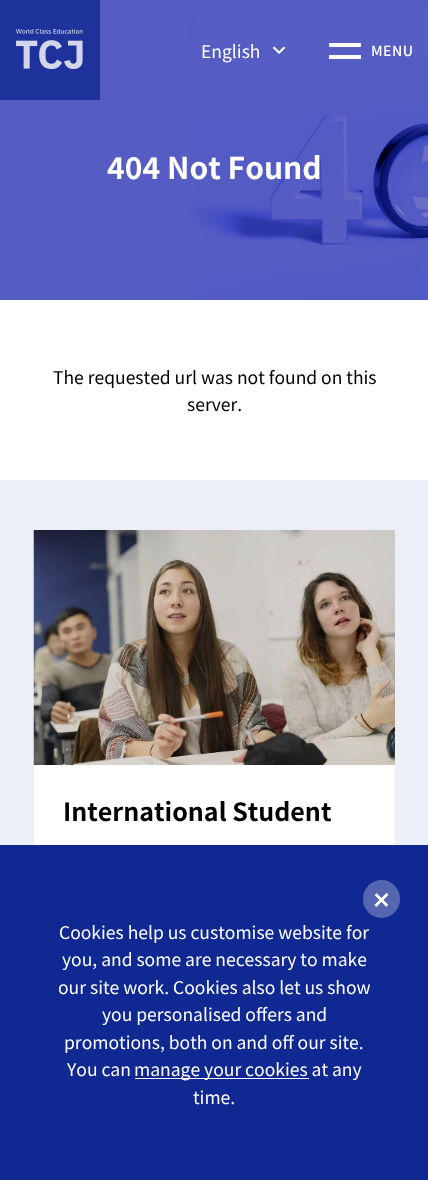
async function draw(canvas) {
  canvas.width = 428;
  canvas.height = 1180;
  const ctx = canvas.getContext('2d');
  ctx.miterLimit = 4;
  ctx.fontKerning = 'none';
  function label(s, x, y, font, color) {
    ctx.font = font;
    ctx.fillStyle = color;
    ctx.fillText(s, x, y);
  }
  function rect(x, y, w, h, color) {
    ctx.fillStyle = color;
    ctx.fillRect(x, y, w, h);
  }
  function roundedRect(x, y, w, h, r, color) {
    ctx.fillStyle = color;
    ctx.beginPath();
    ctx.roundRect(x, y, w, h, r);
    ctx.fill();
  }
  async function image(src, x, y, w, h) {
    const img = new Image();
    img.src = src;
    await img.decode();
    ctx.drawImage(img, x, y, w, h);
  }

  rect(0, 0, 428, 1180, '#fff');
  await image('assets/img3.png', 0, 0, 428, 300);
  await image('assets/img1.png', 0, 0, 100, 100);
  label('English', 201, 58, '17.5px Noto Sans JP', '#fff');
  await image('assets/img2.png', 272, 46, 14, 8);
  rect(329, 43, 32, 4, '#fff');
  rect(329, 55, 32, 4, '#fff');
  ctx.letterSpacing = '0.5px';
  label('MENU', 371, 56, '500 14px Noto Sans JP', '#fff');
  ctx.letterSpacing = '0px';
  label('404 Not Found', 107, 179, 'bold 30px Noto Sans JP', '#fff');
  label('The requested url was not found on this', 53, 384, '17.5px Noto Sans JP', '#000');
  label('server.', 187, 411, '17.5px Noto Sans JP', '#000');
  rect(0, 480, 428, 365, '#eceff6');
  rect(34, 765, 361, 80, '#fff');
  await image('assets/img4.png', 33, 530, 362, 235);
  label('International Student', 63, 821, 'bold 25px Noto Sans JP', '#000');
  rect(0, 845, 428, 335, '#102891');
  roundedRect(363, 880, 37, 38, 18.5, '#5566b1');
  label('×', 371, 911, '38px DM Sans', '#fff');
  label('Cookies help us customise website for', 59, 939, '17.5px Noto Sans JP', '#fff');
  label('you, and some are necessary to make', 62, 966, '17.5px Noto Sans JP', '#fff');
  label('our site work. Cookies also let us show', 58, 994, '17.5px Noto Sans JP', '#fff');
  label('you personalised offers and', 102, 1021, '17.5px Noto Sans JP', '#fff');
  label('promotions, both on and off our site.', 64, 1049, '17.5px Noto Sans JP', '#fff');
  label('You can', 67, 1076, '17.5px Noto Sans JP', '#fff');
  rect(135, 1078, 174, 1, '#fff');
  label('manage your cookies at any', 134, 1076, '17.5px Noto Sans JP', '#fff');
  label('time.', 193, 1104, '17.5px Noto Sans JP', '#fff');
}

draw(document.querySelector('canvas'));
